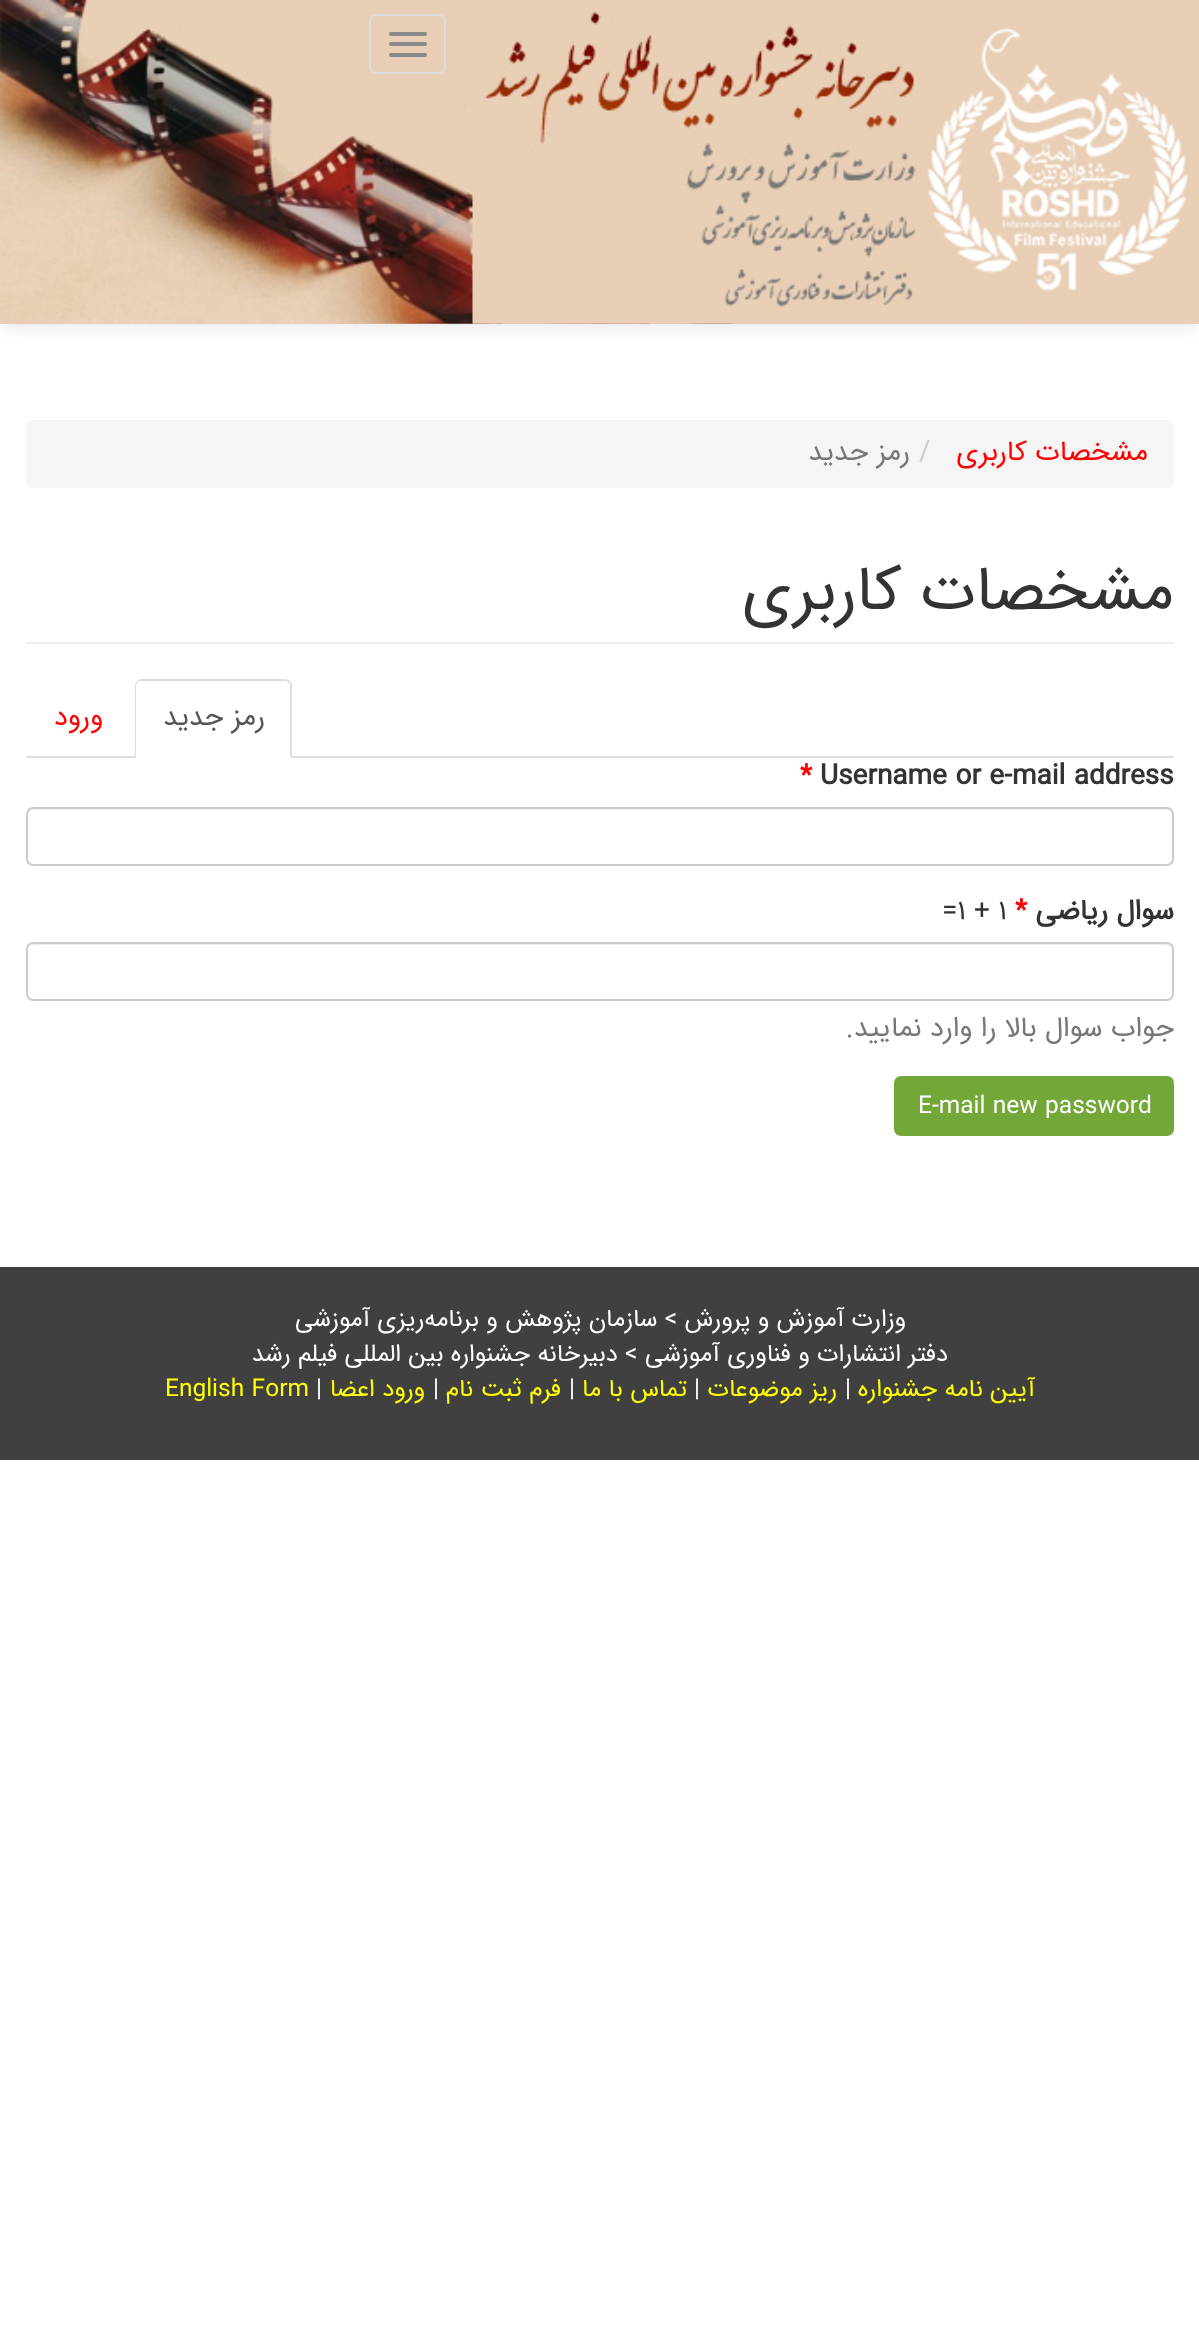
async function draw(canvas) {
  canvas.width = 1199;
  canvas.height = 2330;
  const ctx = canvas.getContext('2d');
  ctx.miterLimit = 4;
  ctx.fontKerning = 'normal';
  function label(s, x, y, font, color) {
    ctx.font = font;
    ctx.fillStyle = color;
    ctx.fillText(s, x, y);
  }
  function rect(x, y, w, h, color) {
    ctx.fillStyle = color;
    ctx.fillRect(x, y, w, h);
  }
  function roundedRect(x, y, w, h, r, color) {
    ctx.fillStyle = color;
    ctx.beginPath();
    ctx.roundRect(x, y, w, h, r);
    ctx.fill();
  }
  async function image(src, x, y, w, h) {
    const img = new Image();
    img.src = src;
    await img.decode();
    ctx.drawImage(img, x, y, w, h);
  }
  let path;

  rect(0, 0, 1199, 2330, '#fff');
  ctx.fillStyle = '#0000001a';
  ctx.filter = 'blur(9px)';
  ctx.beginPath();
  ctx.rect(0, 2, 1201, 324);
  ctx.fill();
  ctx.filter = 'none';
  rect(0, 0, 1199, 324, '#e9cfb6');
  await image('assets/img1.png', 0, 0, 736, 324);
  await image('assets/img2.png', 472, 11, 718, 313);
  ctx.beginPath();
  ctx.roundRect(370, 15, 75, 58, 6);
  ctx.strokeStyle = '#ddd';
  ctx.lineWidth = 2;
  ctx.stroke();
  roundedRect(389, 32, 38, 4, 2, '#888');
  roundedRect(389, 42, 38, 4, 2, '#888');
  roundedRect(389, 53, 38, 4, 2, '#888');
  roundedRect(26, 420, 1148, 68, 7, '#f5f5f5');
  ctx.direction = 'rtl';
  label('مشخصات کاربری', 1148, 460, '28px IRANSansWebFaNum', '#f00');
  ctx.direction = 'ltr';
  label('/', 919, 460, '28px IRANSansWebFaNum', '#ccc');
  ctx.direction = 'rtl';
  label('رمز جدید', 910, 460, '28px IRANSansWebFaNum', '#777');
  rect(26, 642, 1148, 2, '#eee');
  label('مشخصات کاربری', 1174, 609, '63px IRANSansWebFaNum', '#333');
  rect(26, 756, 1148, 2, '#ddd');
  ctx.fillStyle = '#fff';
  ctx.beginPath();
  ctx.roundRect(135, 679, 157, 79, [7, 7, 0, 0]);
  ctx.fill();
  ctx.fillStyle = '#ddd';
  path = new Path2D('M142 679C140 679 138 680 137 681L138 682C139 681 141 681 142 681H285C287 681 288 682 289 683L290 681C289 680 287 679 285 679Z');
  ctx.fill(path);
  path = new Path2D('M290 681C291 682 292 684 292 686V758L290 756V686C290 685 290 683 289 683Z');
  ctx.fill(path);
  path = new Path2D('M137 681C136 682 135 684 135 686V758L136 756V685L138 682Z');
  ctx.fill(path);
  label('رمز جدید', 265, 725, '28px IRANSansWebFaNum', '#555');
  label('ورود', 103, 725, '28px IRANSansWebFaNum', '#f00');
  ctx.direction = 'ltr';
  label('Username or e-mail address', 820, 784, 'bold 28px IRANSansWebFaNum', '#333');
  label('*', 800, 784, 'bold 28px IRANSansWebFaNum', '#f00');
  ctx.fillStyle = '#ececec';
  path = new Path2D('M33 810H1167C1170 810 1172 813 1172 816V861L1171 864L1173 861V813C1172 811 1170 809 1168 809H32L29 810C28 812 28 814 28 816C28 813 30 810 33 810Z');
  ctx.fill(path);
  ctx.beginPath();
  ctx.roundRect(27, 808, 1146, 57, 6);
  ctx.strokeStyle = '#ccc';
  ctx.stroke();
  ctx.direction = 'rtl';
  label('سوال ریاضی', 1174, 919, 'bold 28px IRANSansWebFaNum', '#333');
  ctx.direction = 'ltr';
  label('*', 1015, 919, 'bold 28px IRANSansWebFaNum', '#f00');
  label('=1 + 1', 942, 919, '28px IRANSansWebFaNum', '#333');
  ctx.fillStyle = '#ececec';
  path = new Path2D('M33 945H1167C1170 945 1172 947 1172 950V997C1173 996 1173 995 1173 994V948C1173 945 1171 943 1168 943H33C30 943 28 945 28 948V950C28 947 30 945 33 945Z');
  ctx.fill(path);
  ctx.beginPath();
  ctx.roundRect(27, 943, 1146, 57, 6);
  ctx.stroke();
  ctx.direction = 'rtl';
  label('جواب سوال بالا را وارد نمایید.', 1174, 1036, '28px IRANSansWebFaNum', '#777');
  ctx.fillStyle = '#73a839';
  ctx.beginPath();
  ctx.roundRect(895, 1077, 278, 58, 6);
  ctx.fill();
  ctx.strokeStyle = '#73a839';
  ctx.stroke();
  ctx.direction = 'ltr';
  label('E-mail new password', 918, 1113, '24.5px IRANSansWebFaNum', '#fff');
  rect(0, 1267, 1199, 193, '#404040');
  ctx.direction = 'rtl';
  label('وزارت آموزش و پرورش > سازمان پژوهش و برنامه‌ريزی آموزشی', 906, 1326, '24.5px IRANSansWebFaNum', '#fff');
  label('دفتر انتشارات و فناوری آموزشی > دبیرخانه جشنواره بین المللی فیلم رشد', 948, 1361, '24.5px IRANSansWebFaNum', '#fff');
  label('آیین نامه جشنواره', 1035, 1396, '24.5px IRANSansWebFaNum', '#ff0');
  ctx.direction = 'ltr';
  label('|', 845, 1396, '24.5px IRANSansWebFaNum', '#fff');
  ctx.direction = 'rtl';
  label('ریز موضوعات', 837, 1396, '24.5px IRANSansWebFaNum', '#ff0');
  ctx.direction = 'ltr';
  label('|', 694, 1396, '24.5px IRANSansWebFaNum', '#fff');
  ctx.direction = 'rtl';
  label('تماس با ما', 687, 1396, '24.5px IRANSansWebFaNum', '#ff0');
  ctx.direction = 'ltr';
  label('|', 569, 1396, '24.5px IRANSansWebFaNum', '#fff');
  ctx.direction = 'rtl';
  label('فرم ثبت نام', 561, 1396, '24.5px IRANSansWebFaNum', '#ff0');
  ctx.direction = 'ltr';
  label('|', 433, 1396, '24.5px IRANSansWebFaNum', '#fff');
  ctx.direction = 'rtl';
  label('ورود اعضا', 425, 1396, '24.5px IRANSansWebFaNum', '#ff0');
  ctx.direction = 'ltr';
  label('|', 316, 1396, '24.5px IRANSansWebFaNum', '#fff');
  label('English Form', 165, 1396, '24.5px IRANSansWebFaNum', '#ff0');
}

draw(document.querySelector('canvas'));
